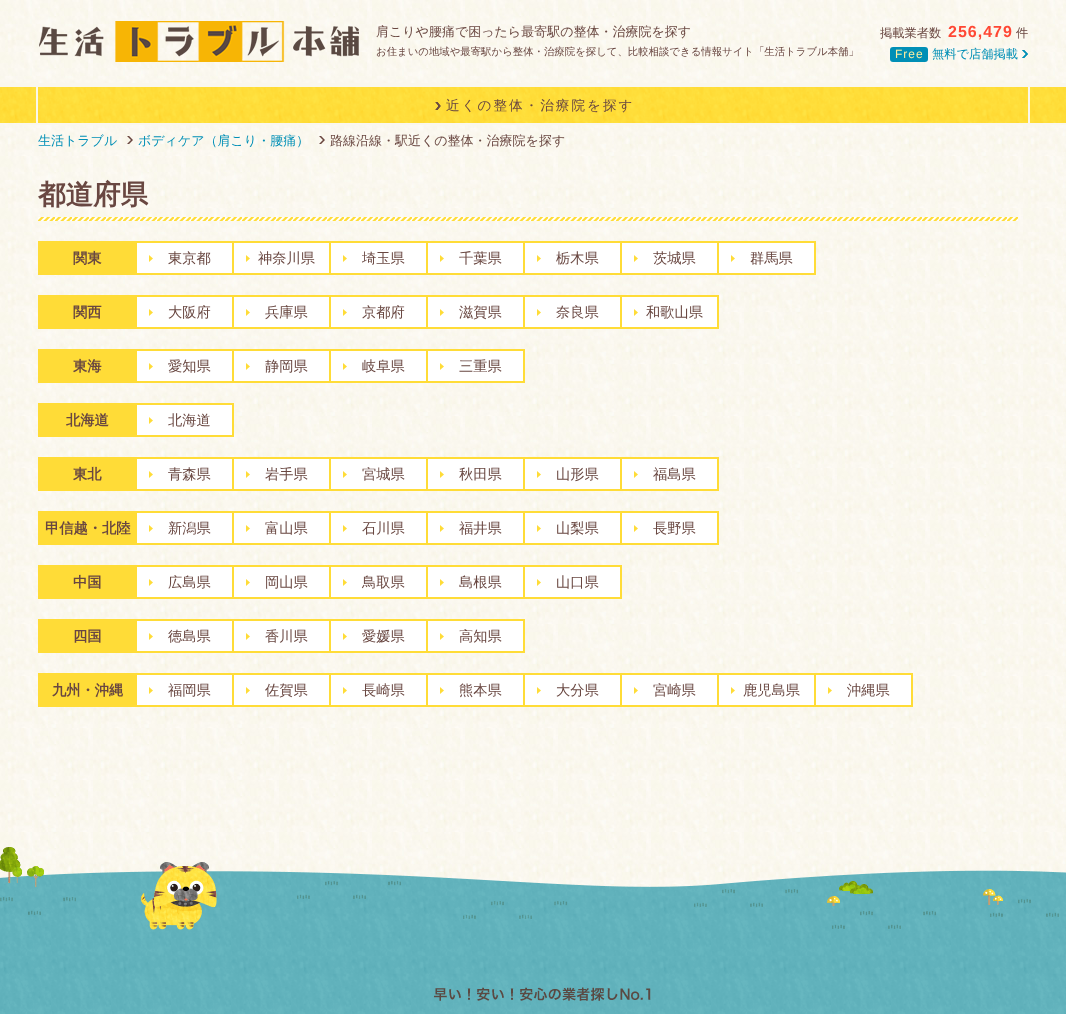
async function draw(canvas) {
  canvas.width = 1066;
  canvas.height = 1014;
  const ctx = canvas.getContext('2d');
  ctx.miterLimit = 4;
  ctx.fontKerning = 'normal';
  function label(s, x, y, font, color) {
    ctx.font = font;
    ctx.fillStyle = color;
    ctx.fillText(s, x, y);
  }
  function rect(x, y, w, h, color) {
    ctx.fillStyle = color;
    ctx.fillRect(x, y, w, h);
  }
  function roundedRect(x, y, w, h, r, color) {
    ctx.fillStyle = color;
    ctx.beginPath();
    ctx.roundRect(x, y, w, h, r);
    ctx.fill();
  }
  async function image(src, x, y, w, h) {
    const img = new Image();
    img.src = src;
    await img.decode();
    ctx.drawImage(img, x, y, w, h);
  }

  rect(0, 0, 1066, 1014, '#fff');
  await image('assets/img1.png', 0, 0, 1066, 899);
  await image('assets/img2.png', 39, 21, 320, 41);
  label('肩こりや腰痛で困ったら最寄駅の整体・治療院を探す', 376, 36, '500 13px WenQuanYi Zen Hei', '#694741');
  label('お住まいの地域や最寄駅から整体・治療院を探して、比較相談できる情報サイト「生活トラブル本舗」', 376, 55, '500 10.4px WenQuanYi Zen Hei', '#694741');
  label('掲載業者数', 880, 37, '500 12.25px WenQuanYi Zen Hei', '#694741');
  ctx.letterSpacing = '1px';
  label('256,479', 948, 37, 'bold 16px Liberation Sans', '#ff4734');
  ctx.letterSpacing = '0px';
  label('件', 1016, 37, '500 12.25px WenQuanYi Zen Hei', '#694741');
  roundedRect(890, 47, 38, 15, 3, '#008fb6');
  ctx.letterSpacing = '1px';
  label('Free', 895, 58, '12px Liberation Sans', '#ffeea0');
  ctx.letterSpacing = '0px';
  label('無料で店舗掲載', 932, 58, '500 12.25px WenQuanYi Zen Hei', '#008fb6');
  await image('assets/img3.png', 1022, 50, 6, 8);
  rect(0, 83, 1066, 4, '#faf7ed');
  await image('assets/img4.png', 0, 87, 1066, 36);
  rect(16, 123, 1050, 2, '#faf7ed');
  rect(1028, 87, 2, 36, '#faf7ed');
  rect(36, 87, 2, 36, '#faf7ed');
  await image('assets/img5.png', 435, 102, 6, 8);
  ctx.letterSpacing = '2px';
  label('近くの整体・治療院を探す', 446, 110, '500 13.6px WenQuanYi Zen Hei', '#694741');
  ctx.letterSpacing = '0px';
  label('生活トラブル', 38, 145, '500 13px WenQuanYi Zen Hei', '#008fb6');
  await image('assets/img6.png', 127, 136, 6, 8);
  label('ボディケア（肩こり・腰痛）', 138, 145, '500 13px WenQuanYi Zen Hei', '#008fb6');
  await image('assets/img7.png', 319, 136, 6, 8);
  label('路線沿線・駅近くの整体・治療院を探す', 330, 145, '500 13px WenQuanYi Zen Hei', '#694741');
  await image('assets/img8.png', 38, 217, 980, 4);
  label('都道府県', 38, 204, 'bold 27.5px WenQuanYi Zen Hei', '#694741');
  rect(38, 241, 99, 34, '#ffdc37');
  label('関東', 73, 263, 'bold 14.25px WenQuanYi Zen Hei', '#694741');
  rect(137, 241, 679, 2, '#ffdc37');
  rect(232, 241, 2, 34, '#ffdc37');
  rect(137, 273, 97, 2, '#ffdc37');
  rect(137, 243, 95, 30, '#fff');
  await image('assets/img9.png', 149, 255, 4, 7);
  label('東京都', 168, 263, '500 14.25px WenQuanYi Zen Hei', '#694741');
  rect(329, 241, 2, 34, '#ffdc37');
  rect(234, 273, 97, 2, '#ffdc37');
  rect(234, 243, 95, 30, '#fff');
  await image('assets/img9.png', 246, 255, 4, 7);
  label('神奈川県', 258, 263, '500 14.25px WenQuanYi Zen Hei', '#694741');
  rect(426, 241, 2, 34, '#ffdc37');
  rect(331, 273, 97, 2, '#ffdc37');
  rect(331, 243, 95, 30, '#fff');
  await image('assets/img9.png', 343, 255, 4, 7);
  label('埼玉県', 362, 263, '500 14.25px WenQuanYi Zen Hei', '#694741');
  rect(523, 241, 2, 34, '#ffdc37');
  rect(428, 273, 97, 2, '#ffdc37');
  rect(428, 243, 95, 30, '#fff');
  await image('assets/img9.png', 440, 255, 4, 7);
  label('千葉県', 459, 263, '500 14.25px WenQuanYi Zen Hei', '#694741');
  rect(620, 241, 2, 34, '#ffdc37');
  rect(525, 273, 97, 2, '#ffdc37');
  rect(525, 243, 95, 30, '#fff');
  await image('assets/img9.png', 537, 255, 4, 7);
  label('栃木県', 556, 263, '500 14.25px WenQuanYi Zen Hei', '#694741');
  rect(717, 241, 2, 34, '#ffdc37');
  rect(622, 273, 97, 2, '#ffdc37');
  rect(622, 243, 95, 30, '#fff');
  await image('assets/img9.png', 634, 255, 4, 7);
  label('茨城県', 653, 263, '500 14.25px WenQuanYi Zen Hei', '#694741');
  rect(814, 241, 2, 34, '#ffdc37');
  rect(719, 273, 97, 2, '#ffdc37');
  rect(719, 243, 95, 30, '#fff');
  await image('assets/img9.png', 731, 255, 4, 7);
  label('群馬県', 750, 263, '500 14.25px WenQuanYi Zen Hei', '#694741');
  rect(38, 295, 99, 34, '#ffdc37');
  label('関西', 73, 317, 'bold 14.25px WenQuanYi Zen Hei', '#694741');
  rect(137, 295, 582, 2, '#ffdc37');
  rect(232, 295, 2, 34, '#ffdc37');
  rect(137, 327, 97, 2, '#ffdc37');
  rect(137, 297, 95, 30, '#fff');
  await image('assets/img9.png', 149, 309, 4, 7);
  label('大阪府', 168, 317, '500 14.25px WenQuanYi Zen Hei', '#694741');
  rect(329, 295, 2, 34, '#ffdc37');
  rect(234, 327, 97, 2, '#ffdc37');
  rect(234, 297, 95, 30, '#fff');
  await image('assets/img9.png', 246, 309, 4, 7);
  label('兵庫県', 265, 317, '500 14.25px WenQuanYi Zen Hei', '#694741');
  rect(426, 295, 2, 34, '#ffdc37');
  rect(331, 327, 97, 2, '#ffdc37');
  rect(331, 297, 95, 30, '#fff');
  await image('assets/img9.png', 343, 309, 4, 7);
  label('京都府', 362, 317, '500 14.25px WenQuanYi Zen Hei', '#694741');
  rect(523, 295, 2, 34, '#ffdc37');
  rect(428, 327, 97, 2, '#ffdc37');
  rect(428, 297, 95, 30, '#fff');
  await image('assets/img9.png', 440, 309, 4, 7);
  label('滋賀県', 459, 317, '500 14.25px WenQuanYi Zen Hei', '#694741');
  rect(620, 295, 2, 34, '#ffdc37');
  rect(525, 327, 97, 2, '#ffdc37');
  rect(525, 297, 95, 30, '#fff');
  await image('assets/img9.png', 537, 309, 4, 7);
  label('奈良県', 556, 317, '500 14.25px WenQuanYi Zen Hei', '#694741');
  rect(717, 295, 2, 34, '#ffdc37');
  rect(622, 327, 97, 2, '#ffdc37');
  rect(622, 297, 95, 30, '#fff');
  await image('assets/img9.png', 634, 309, 4, 7);
  label('和歌山県', 646, 317, '500 14.25px WenQuanYi Zen Hei', '#694741');
  rect(38, 349, 99, 34, '#ffdc37');
  label('東海', 73, 371, 'bold 14.25px WenQuanYi Zen Hei', '#694741');
  rect(137, 349, 388, 2, '#ffdc37');
  rect(232, 349, 2, 34, '#ffdc37');
  rect(137, 381, 97, 2, '#ffdc37');
  rect(137, 351, 95, 30, '#fff');
  await image('assets/img9.png', 149, 363, 4, 7);
  label('愛知県', 168, 371, '500 14.25px WenQuanYi Zen Hei', '#694741');
  rect(329, 349, 2, 34, '#ffdc37');
  rect(234, 381, 97, 2, '#ffdc37');
  rect(234, 351, 95, 30, '#fff');
  await image('assets/img9.png', 246, 363, 4, 7);
  label('静岡県', 265, 371, '500 14.25px WenQuanYi Zen Hei', '#694741');
  rect(426, 349, 2, 34, '#ffdc37');
  rect(331, 381, 97, 2, '#ffdc37');
  rect(331, 351, 95, 30, '#fff');
  await image('assets/img9.png', 343, 363, 4, 7);
  label('岐阜県', 362, 371, '500 14.25px WenQuanYi Zen Hei', '#694741');
  rect(523, 349, 2, 34, '#ffdc37');
  rect(428, 381, 97, 2, '#ffdc37');
  rect(428, 351, 95, 30, '#fff');
  await image('assets/img9.png', 440, 363, 4, 7);
  label('三重県', 459, 371, '500 14.25px WenQuanYi Zen Hei', '#694741');
  rect(38, 403, 99, 34, '#ffdc37');
  label('北海道', 66, 425, 'bold 14.25px WenQuanYi Zen Hei', '#694741');
  rect(137, 403, 97, 2, '#ffdc37');
  rect(232, 403, 2, 34, '#ffdc37');
  rect(137, 435, 97, 2, '#ffdc37');
  rect(137, 405, 95, 30, '#fff');
  await image('assets/img9.png', 149, 417, 4, 7);
  label('北海道', 168, 425, '500 14.25px WenQuanYi Zen Hei', '#694741');
  rect(38, 457, 99, 34, '#ffdc37');
  label('東北', 73, 479, 'bold 14.25px WenQuanYi Zen Hei', '#694741');
  rect(137, 457, 582, 2, '#ffdc37');
  rect(232, 457, 2, 34, '#ffdc37');
  rect(137, 489, 97, 2, '#ffdc37');
  rect(137, 459, 95, 30, '#fff');
  await image('assets/img9.png', 149, 471, 4, 7);
  label('青森県', 168, 479, '500 14.25px WenQuanYi Zen Hei', '#694741');
  rect(329, 457, 2, 34, '#ffdc37');
  rect(234, 489, 97, 2, '#ffdc37');
  rect(234, 459, 95, 30, '#fff');
  await image('assets/img9.png', 246, 471, 4, 7);
  label('岩手県', 265, 479, '500 14.25px WenQuanYi Zen Hei', '#694741');
  rect(426, 457, 2, 34, '#ffdc37');
  rect(331, 489, 97, 2, '#ffdc37');
  rect(331, 459, 95, 30, '#fff');
  await image('assets/img9.png', 343, 471, 4, 7);
  label('宮城県', 362, 479, '500 14.25px WenQuanYi Zen Hei', '#694741');
  rect(523, 457, 2, 34, '#ffdc37');
  rect(428, 489, 97, 2, '#ffdc37');
  rect(428, 459, 95, 30, '#fff');
  await image('assets/img9.png', 440, 471, 4, 7);
  label('秋田県', 459, 479, '500 14.25px WenQuanYi Zen Hei', '#694741');
  rect(620, 457, 2, 34, '#ffdc37');
  rect(525, 489, 97, 2, '#ffdc37');
  rect(525, 459, 95, 30, '#fff');
  await image('assets/img9.png', 537, 471, 4, 7);
  label('山形県', 556, 479, '500 14.25px WenQuanYi Zen Hei', '#694741');
  rect(717, 457, 2, 34, '#ffdc37');
  rect(622, 489, 97, 2, '#ffdc37');
  rect(622, 459, 95, 30, '#fff');
  await image('assets/img9.png', 634, 471, 4, 7);
  label('福島県', 653, 479, '500 14.25px WenQuanYi Zen Hei', '#694741');
  rect(38, 511, 99, 34, '#ffdc37');
  label('甲信越・北陸', 45, 533, 'bold 14.25px WenQuanYi Zen Hei', '#694741');
  rect(137, 511, 582, 2, '#ffdc37');
  rect(232, 511, 2, 34, '#ffdc37');
  rect(137, 543, 97, 2, '#ffdc37');
  rect(137, 513, 95, 30, '#fff');
  await image('assets/img9.png', 149, 525, 4, 7);
  label('新潟県', 168, 533, '500 14.25px WenQuanYi Zen Hei', '#694741');
  rect(329, 511, 2, 34, '#ffdc37');
  rect(234, 543, 97, 2, '#ffdc37');
  rect(234, 513, 95, 30, '#fff');
  await image('assets/img9.png', 246, 525, 4, 7);
  label('富山県', 265, 533, '500 14.25px WenQuanYi Zen Hei', '#694741');
  rect(426, 511, 2, 34, '#ffdc37');
  rect(331, 543, 97, 2, '#ffdc37');
  rect(331, 513, 95, 30, '#fff');
  await image('assets/img9.png', 343, 525, 4, 7);
  label('石川県', 362, 533, '500 14.25px WenQuanYi Zen Hei', '#694741');
  rect(523, 511, 2, 34, '#ffdc37');
  rect(428, 543, 97, 2, '#ffdc37');
  rect(428, 513, 95, 30, '#fff');
  await image('assets/img9.png', 440, 525, 4, 7);
  label('福井県', 459, 533, '500 14.25px WenQuanYi Zen Hei', '#694741');
  rect(620, 511, 2, 34, '#ffdc37');
  rect(525, 543, 97, 2, '#ffdc37');
  rect(525, 513, 95, 30, '#fff');
  await image('assets/img9.png', 537, 525, 4, 7);
  label('山梨県', 556, 533, '500 14.25px WenQuanYi Zen Hei', '#694741');
  rect(717, 511, 2, 34, '#ffdc37');
  rect(622, 543, 97, 2, '#ffdc37');
  rect(622, 513, 95, 30, '#fff');
  await image('assets/img9.png', 634, 525, 4, 7);
  label('長野県', 653, 533, '500 14.25px WenQuanYi Zen Hei', '#694741');
  rect(38, 565, 99, 34, '#ffdc37');
  label('中国', 73, 587, 'bold 14.25px WenQuanYi Zen Hei', '#694741');
  rect(137, 565, 485, 2, '#ffdc37');
  rect(232, 565, 2, 34, '#ffdc37');
  rect(137, 597, 97, 2, '#ffdc37');
  rect(137, 567, 95, 30, '#fff');
  await image('assets/img9.png', 149, 579, 4, 7);
  label('広島県', 168, 587, '500 14.25px WenQuanYi Zen Hei', '#694741');
  rect(329, 565, 2, 34, '#ffdc37');
  rect(234, 597, 97, 2, '#ffdc37');
  rect(234, 567, 95, 30, '#fff');
  await image('assets/img9.png', 246, 579, 4, 7);
  label('岡山県', 265, 587, '500 14.25px WenQuanYi Zen Hei', '#694741');
  rect(426, 565, 2, 34, '#ffdc37');
  rect(331, 597, 97, 2, '#ffdc37');
  rect(331, 567, 95, 30, '#fff');
  await image('assets/img9.png', 343, 579, 4, 7);
  label('鳥取県', 362, 587, '500 14.25px WenQuanYi Zen Hei', '#694741');
  rect(523, 565, 2, 34, '#ffdc37');
  rect(428, 597, 97, 2, '#ffdc37');
  rect(428, 567, 95, 30, '#fff');
  await image('assets/img9.png', 440, 579, 4, 7);
  label('島根県', 459, 587, '500 14.25px WenQuanYi Zen Hei', '#694741');
  rect(620, 565, 2, 34, '#ffdc37');
  rect(525, 597, 97, 2, '#ffdc37');
  rect(525, 567, 95, 30, '#fff');
  await image('assets/img9.png', 537, 579, 4, 7);
  label('山口県', 556, 587, '500 14.25px WenQuanYi Zen Hei', '#694741');
  rect(38, 619, 99, 34, '#ffdc37');
  label('四国', 73, 641, 'bold 14.25px WenQuanYi Zen Hei', '#694741');
  rect(137, 619, 388, 2, '#ffdc37');
  rect(232, 619, 2, 34, '#ffdc37');
  rect(137, 651, 97, 2, '#ffdc37');
  rect(137, 621, 95, 30, '#fff');
  await image('assets/img9.png', 149, 633, 4, 7);
  label('徳島県', 168, 641, '500 14.25px WenQuanYi Zen Hei', '#694741');
  rect(329, 619, 2, 34, '#ffdc37');
  rect(234, 651, 97, 2, '#ffdc37');
  rect(234, 621, 95, 30, '#fff');
  await image('assets/img9.png', 246, 633, 4, 7);
  label('香川県', 265, 641, '500 14.25px WenQuanYi Zen Hei', '#694741');
  rect(426, 619, 2, 34, '#ffdc37');
  rect(331, 651, 97, 2, '#ffdc37');
  rect(331, 621, 95, 30, '#fff');
  await image('assets/img9.png', 343, 633, 4, 7);
  label('愛媛県', 362, 641, '500 14.25px WenQuanYi Zen Hei', '#694741');
  rect(523, 619, 2, 34, '#ffdc37');
  rect(428, 651, 97, 2, '#ffdc37');
  rect(428, 621, 95, 30, '#fff');
  await image('assets/img9.png', 440, 633, 4, 7);
  label('高知県', 459, 641, '500 14.25px WenQuanYi Zen Hei', '#694741');
  rect(38, 673, 99, 34, '#ffdc37');
  label('九州・沖縄', 52, 695, 'bold 14.25px WenQuanYi Zen Hei', '#694741');
  rect(137, 673, 776, 2, '#ffdc37');
  rect(232, 673, 2, 34, '#ffdc37');
  rect(137, 705, 97, 2, '#ffdc37');
  rect(137, 675, 95, 30, '#fff');
  await image('assets/img9.png', 149, 687, 4, 7);
  label('福岡県', 168, 695, '500 14.25px WenQuanYi Zen Hei', '#694741');
  rect(329, 673, 2, 34, '#ffdc37');
  rect(234, 705, 97, 2, '#ffdc37');
  rect(234, 675, 95, 30, '#fff');
  await image('assets/img9.png', 246, 687, 4, 7);
  label('佐賀県', 265, 695, '500 14.25px WenQuanYi Zen Hei', '#694741');
  rect(426, 673, 2, 34, '#ffdc37');
  rect(331, 705, 97, 2, '#ffdc37');
  rect(331, 675, 95, 30, '#fff');
  await image('assets/img9.png', 343, 687, 4, 7);
  label('長崎県', 362, 695, '500 14.25px WenQuanYi Zen Hei', '#694741');
  rect(523, 673, 2, 34, '#ffdc37');
  rect(428, 705, 97, 2, '#ffdc37');
  rect(428, 675, 95, 30, '#fff');
  await image('assets/img9.png', 440, 687, 4, 7);
  label('熊本県', 459, 695, '500 14.25px WenQuanYi Zen Hei', '#694741');
  rect(620, 673, 2, 34, '#ffdc37');
  rect(525, 705, 97, 2, '#ffdc37');
  rect(525, 675, 95, 30, '#fff');
  await image('assets/img9.png', 537, 687, 4, 7);
  label('大分県', 556, 695, '500 14.25px WenQuanYi Zen Hei', '#694741');
  rect(717, 673, 2, 34, '#ffdc37');
  rect(622, 705, 97, 2, '#ffdc37');
  rect(622, 675, 95, 30, '#fff');
  await image('assets/img9.png', 634, 687, 4, 7);
  label('宮崎県', 653, 695, '500 14.25px WenQuanYi Zen Hei', '#694741');
  rect(814, 673, 2, 34, '#ffdc37');
  rect(719, 705, 97, 2, '#ffdc37');
  rect(719, 675, 95, 30, '#fff');
  await image('assets/img9.png', 731, 687, 4, 7);
  label('鹿児島県', 743, 695, '500 14.25px WenQuanYi Zen Hei', '#694741');
  rect(911, 673, 2, 34, '#ffdc37');
  rect(816, 705, 97, 2, '#ffdc37');
  rect(816, 675, 95, 30, '#fff');
  await image('assets/img9.png', 828, 687, 4, 7);
  label('沖縄県', 847, 695, '500 14.25px WenQuanYi Zen Hei', '#694741');
  await image('assets/img10.png', 0, 847, 1066, 167);
  await image('assets/img11.png', 434, 987, 217, 14);
}

draw(document.querySelector('canvas'));
